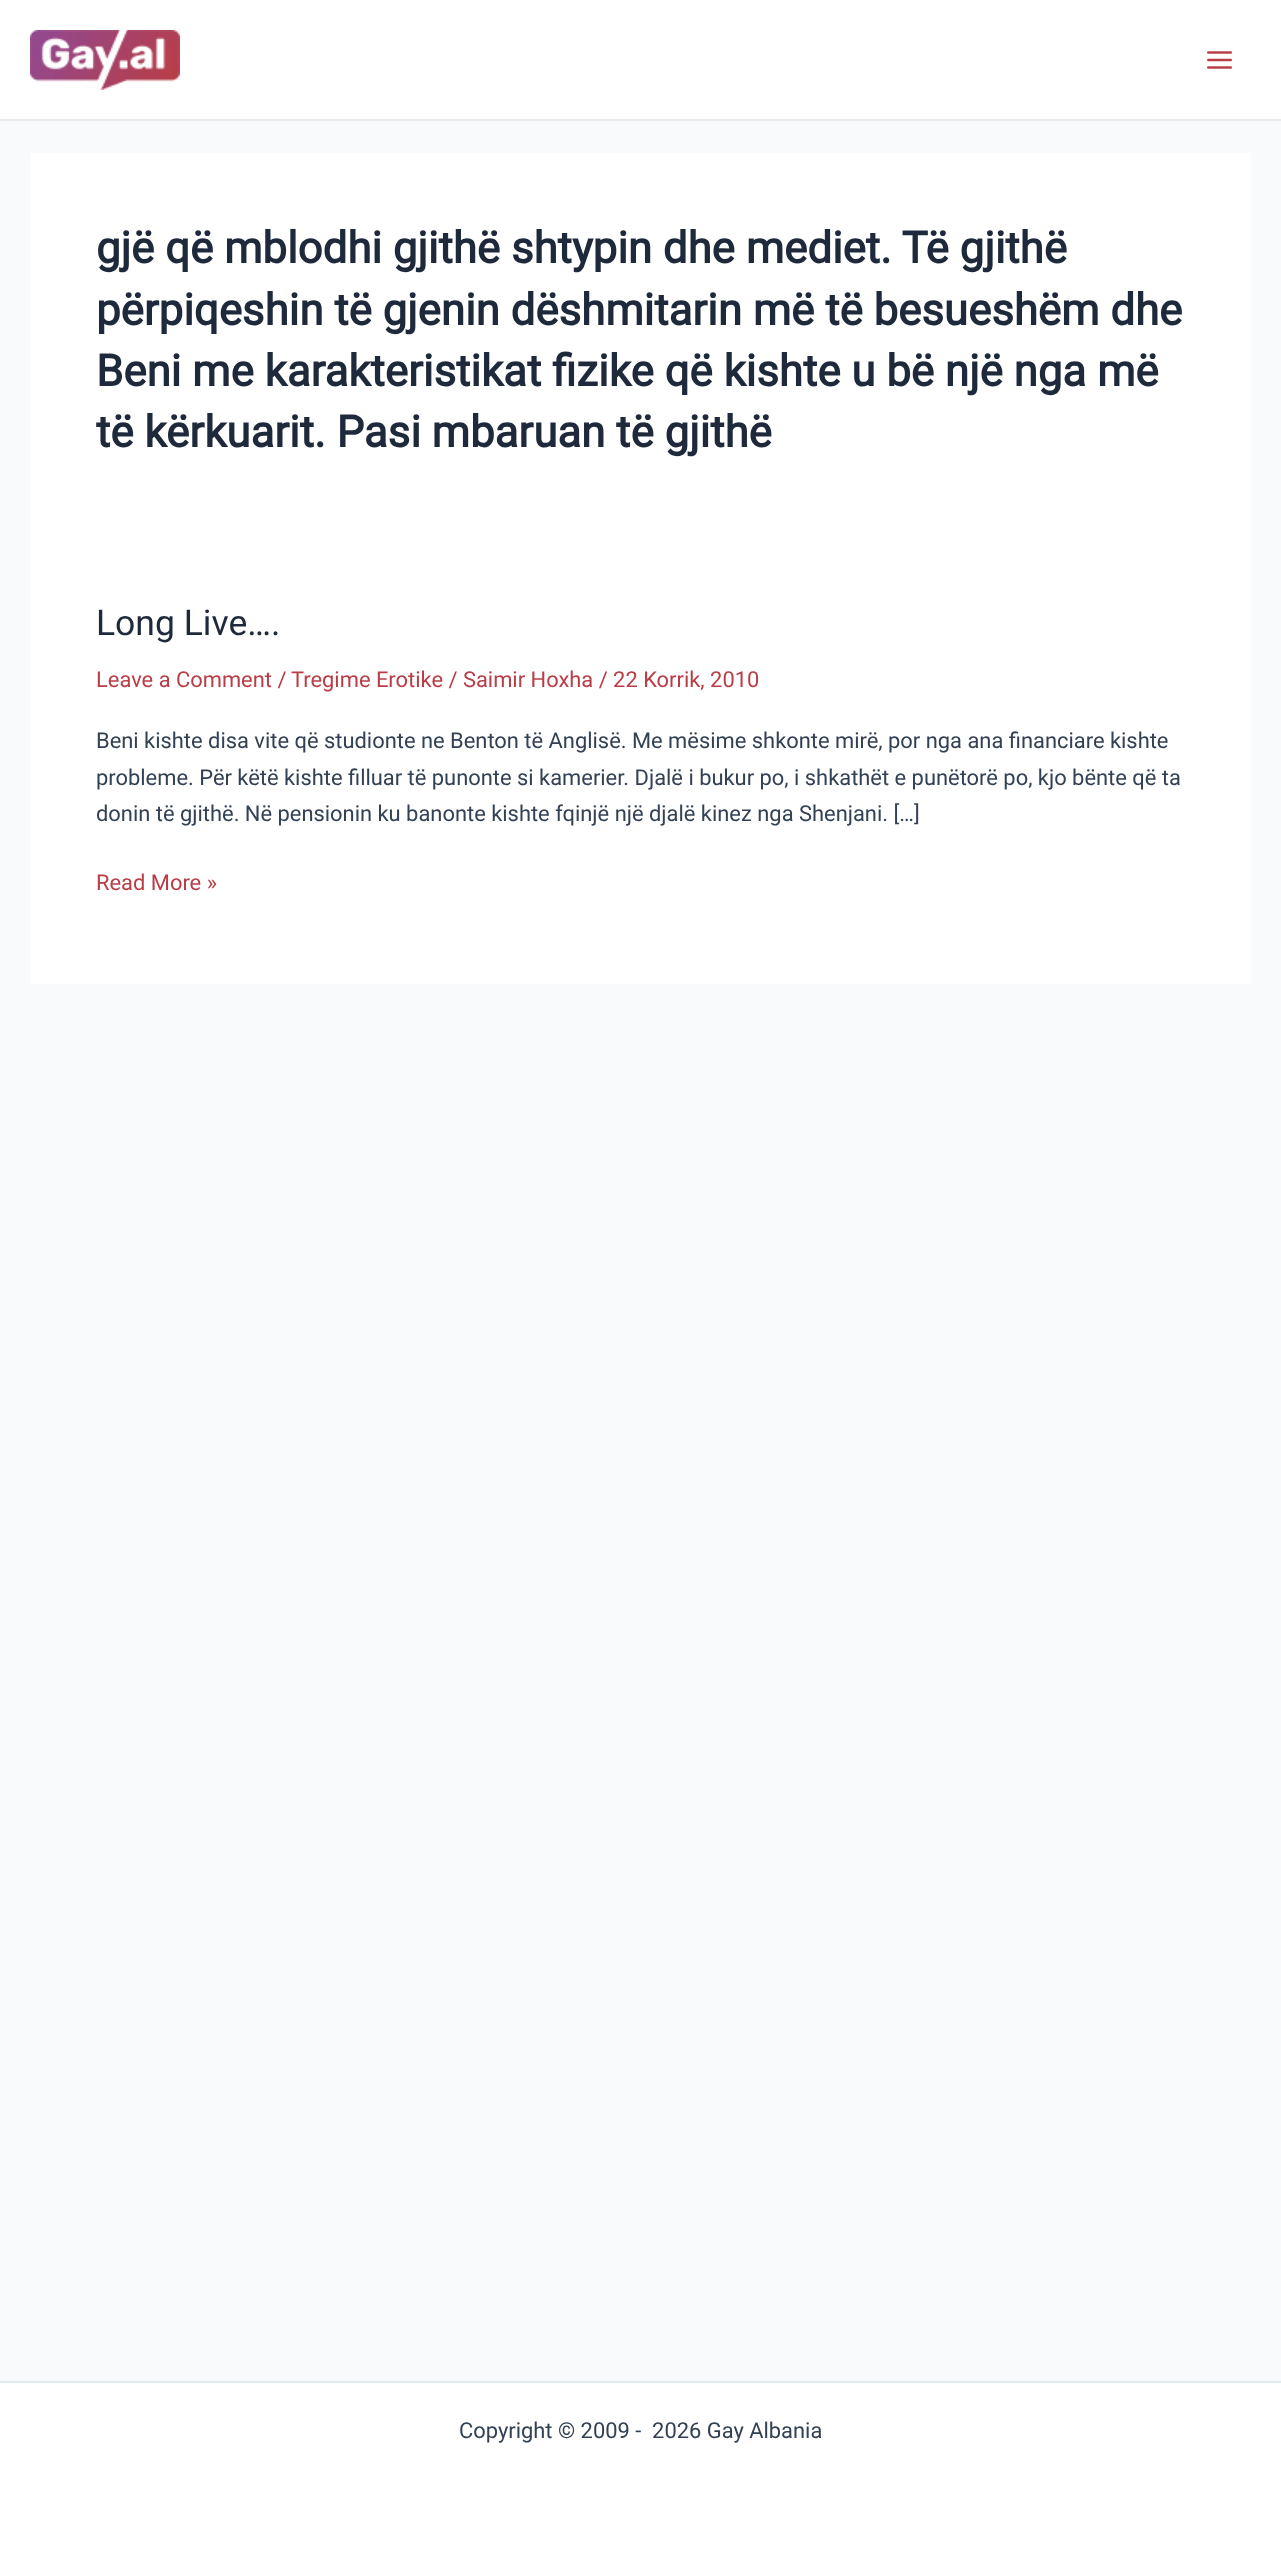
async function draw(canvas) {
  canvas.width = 1281;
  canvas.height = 2562;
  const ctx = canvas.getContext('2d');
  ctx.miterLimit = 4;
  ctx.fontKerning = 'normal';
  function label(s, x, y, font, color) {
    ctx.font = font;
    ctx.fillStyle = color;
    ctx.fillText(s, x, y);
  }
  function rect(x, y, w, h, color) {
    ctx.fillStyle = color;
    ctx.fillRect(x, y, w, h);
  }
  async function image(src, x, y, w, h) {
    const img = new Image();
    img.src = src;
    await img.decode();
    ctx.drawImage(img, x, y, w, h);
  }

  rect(0, 0, 1281, 2562, '#f9fafb');
  rect(0, 0, 1281, 119, '#fff');
  rect(0, 119, 1281, 2, '#eaeaea');
  await image('assets/img1.png', 30, 30, 150, 60);
  await image('assets/img2.png', 1207, 51, 25, 18);
  rect(30, 153, 1221, 831, '#fff');
  label('gjë që mblodhi gjithë shtypin dhe mediet. Të gjithë', 96, 263, 'bold 43.75px Roboto', '#1e293b');
  label('përpiqeshin të gjenin dëshmitarin më të besueshëm dhe', 96, 325, 'bold 43.75px Roboto', '#1e293b');
  label('Beni me karakteristikat fizike që kishte u bë një nga më', 96, 386, 'bold 43.75px Roboto', '#1e293b');
  label('të kërkuarit. Pasi mbaruan të gjithë', 96, 447, 'bold 43.75px Roboto', '#1e293b');
  label('Long Live….', 96, 635, '35.5px Roboto', '#1e293b');
  label('Leave a Comment /', 96, 687, '21.9px Roboto', '#b93d46');
  label('Tregime Erotike / Saimir Hoxha / 22 Korrik, 2010', 291, 687, '21.9px Roboto', '#b93d46');
  label('Beni kishte disa vite që studionte ne Benton të Anglisë. Me mësime shkonte mirë, por nga ana financiare kishte', 96, 748, '21.9px Roboto', '#334155');
  label('probleme. Për këtë kishte filluar të punonte si kamerier. Djalë i bukur po, i shkathët e punëtorë po, kjo bënte që ta', 96, 785, '21.9px Roboto', '#334155');
  label('donin të gjithë. Në pensionin ku banonte kishte fqinjë një djalë kinez nga Shenjani. […]', 96, 821, '21.9px Roboto', '#334155');
  label('Read More »', 96, 890, '21.9px Roboto', '#b93d46');
  rect(0, 2383, 1281, 179, '#fff');
  rect(0, 2381, 1281, 2, '#e2e8f0');
  label('Copyright © 2009 -  2026 Gay Albania', 459, 2438, '21.9px Roboto', '#334155');
}

draw(document.querySelector('canvas'));
